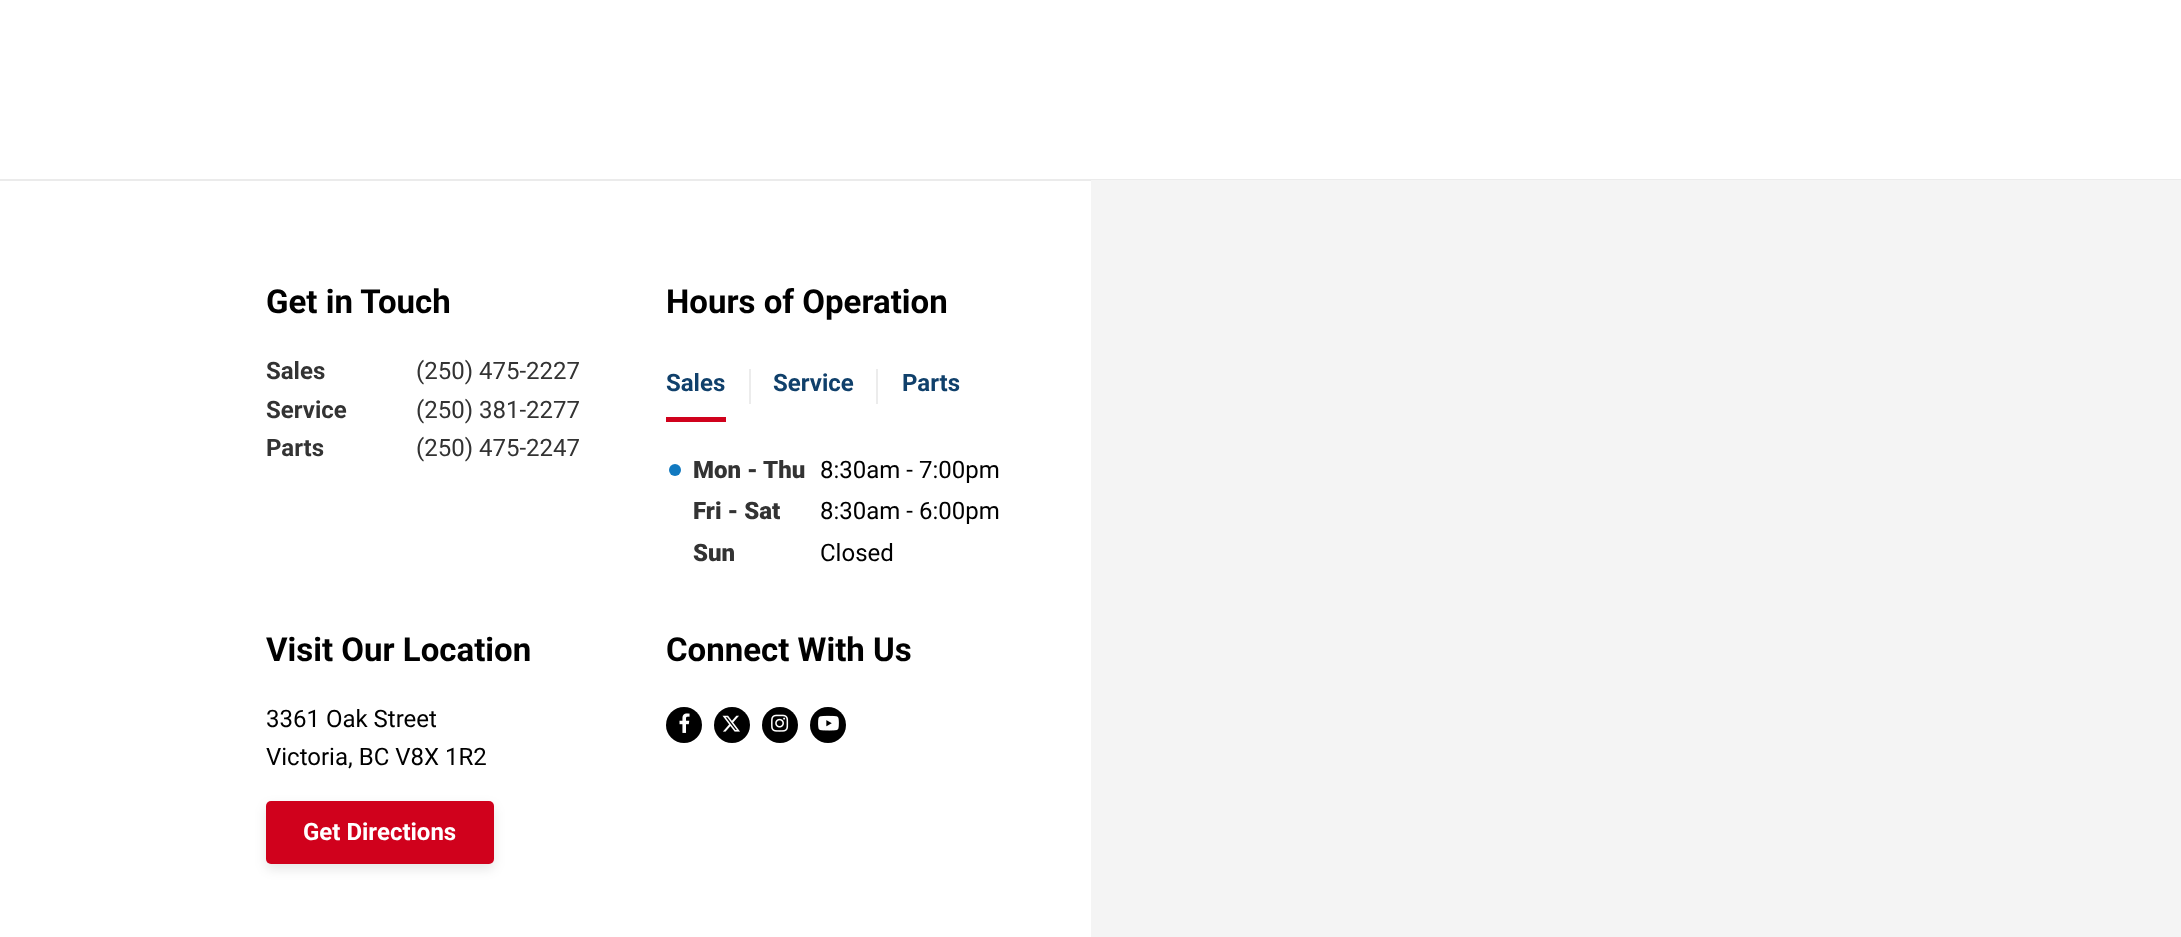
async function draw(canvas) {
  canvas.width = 2181;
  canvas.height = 937;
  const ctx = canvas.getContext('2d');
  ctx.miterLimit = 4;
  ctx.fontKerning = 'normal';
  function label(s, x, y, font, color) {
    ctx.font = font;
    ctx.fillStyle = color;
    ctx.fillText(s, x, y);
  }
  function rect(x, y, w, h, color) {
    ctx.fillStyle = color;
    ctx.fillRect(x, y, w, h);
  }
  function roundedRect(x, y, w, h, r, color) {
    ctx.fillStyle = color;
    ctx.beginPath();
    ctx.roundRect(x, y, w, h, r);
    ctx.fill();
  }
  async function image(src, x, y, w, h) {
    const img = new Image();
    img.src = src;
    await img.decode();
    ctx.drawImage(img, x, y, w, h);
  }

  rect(0, 0, 2181, 937, '#fff');
  rect(0, 179, 2181, 2, '#ebebeb');
  label('Get in Touch', 266, 313, 'bold 33px Roboto', '#000');
  label('Sales', 266, 379, 'bold 24px Roboto', '#333');
  label('(250) 475-2227', 416, 379, '24px Roboto', '#333');
  label('Service', 266, 418, 'bold 24px Roboto', '#333');
  label('(250) 381-2277', 416, 418, '24px Roboto', '#333');
  label('Parts', 266, 456, 'bold 24px Roboto', '#333');
  label('(250) 475-2247', 416, 456, '24px Roboto', '#333');
  label('Hours of Operation', 666, 313, 'bold 33px Roboto', '#000');
  rect(666, 417, 60, 5, '#d0011c');
  label('Sales', 666, 391, 'bold 24px Roboto', '#10406b');
  rect(749, 369, 2, 35, '#ececec');
  label('Service', 773, 391, 'bold 24px Roboto', '#10406b');
  rect(876, 369, 2, 35, '#ececec');
  label('Parts', 902, 391, 'bold 24px Roboto', '#10406b');
  ctx.fillStyle = '#1179c0';
  ctx.beginPath();
  ctx.arc(675, 470, 6, 0, 2 * Math.PI);
  ctx.fill();
  label('Mon - Thu', 693, 478, '900 24px Roboto', '#333');
  label('8:30am - 7:00pm', 820, 478, '24px Roboto', '#000');
  label('Fri - Sat', 693, 519, '900 24px Roboto', '#333');
  label('8:30am - 6:00pm', 820, 519, '24px Roboto', '#000');
  label('Sun', 693, 561, '900 24px Roboto', '#333');
  label('Closed', 820, 561, '24px Roboto', '#000');
  label('Visit Our Location', 266, 661, 'bold 33px Roboto', '#000');
  label('3361 Oak Street', 266, 727, '24px Roboto', '#000');
  label('Victoria, BC V8X 1R2', 266, 765, '24px Roboto', '#000');
  ctx.fillStyle = '#0000001a';
  ctx.filter = 'blur(6px)';
  ctx.beginPath();
  ctx.roundRect(266, 806, 228, 63, 5);
  ctx.fill();
  ctx.filter = 'none';
  roundedRect(266, 801, 228, 63, 5, '#d0011c');
  label('Get Directions', 303, 840, 'bold 24px Roboto', '#fff');
  label('Connect With Us', 666, 661, 'bold 33px Roboto', '#000');
  ctx.beginPath();
  ctx.arc(684, 725, 18, 0, 2 * Math.PI);
  ctx.fill();
  await image('assets/img1.png', 679, 713, 11, 20);
  ctx.beginPath();
  ctx.arc(732, 725, 18, 0, 2 * Math.PI);
  ctx.fill();
  await image('assets/img2.png', 722, 715, 18, 17);
  ctx.beginPath();
  ctx.arc(780, 725, 18, 0, 2 * Math.PI);
  ctx.fill();
  await image('assets/img3.png', 771, 714, 18, 18);
  ctx.beginPath();
  ctx.arc(828, 725, 18, 0, 2 * Math.PI);
  ctx.fill();
  await image('assets/img4.png', 818, 715, 21, 16);
  rect(1091, 180, 1090, 757, '#f4f4f4');
}

draw(document.querySelector('canvas'));
